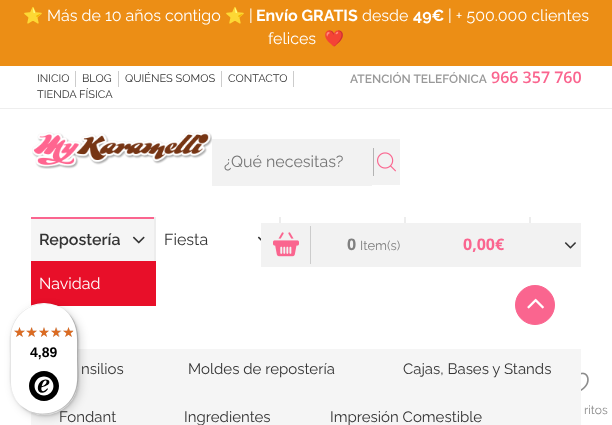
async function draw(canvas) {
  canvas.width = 612;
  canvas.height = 425;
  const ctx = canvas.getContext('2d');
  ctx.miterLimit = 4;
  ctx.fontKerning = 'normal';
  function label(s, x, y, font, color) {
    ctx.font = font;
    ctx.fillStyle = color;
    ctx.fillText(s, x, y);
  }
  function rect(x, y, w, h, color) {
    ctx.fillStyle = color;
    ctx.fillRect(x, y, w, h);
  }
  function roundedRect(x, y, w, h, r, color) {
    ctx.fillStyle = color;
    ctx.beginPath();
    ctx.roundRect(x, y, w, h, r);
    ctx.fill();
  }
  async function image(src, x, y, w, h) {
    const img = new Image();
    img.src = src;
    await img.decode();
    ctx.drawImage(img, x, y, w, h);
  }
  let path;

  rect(0, 0, 612, 425, '#fff');
  rect(0, 0, 612, 66, '#ec8e15');
  label('⭐', 23, 21, '16px Noto Color Emoji', '#fff');
  label('Más de 10 años contigo', 47, 21, '16px Raleway', '#fff');
  label('⭐', 225, 21, '16px Noto Color Emoji', '#fff');
  label('|', 249, 21, '16px Raleway', '#fff');
  label('Envío GRATIS', 256, 21, 'bold 16px Raleway', '#fff');
  label('desde', 362, 21, '16px Raleway', '#fff');
  label('49€', 413, 21, 'bold 16px Raleway', '#fff');
  label('| + 500.000 clientes', 448, 21, '16px Raleway', '#fff');
  label('felices', 268, 44, '16px Raleway', '#fff');
  label('❤️', 324, 44, '16px Noto Color Emoji', '#fff');
  rect(0, 108, 612, 1, '#eee');
  rect(75, 71, 1, 16, '#ccc');
  label('INICIO', 37, 82, '11px Raleway', '#333');
  rect(118, 71, 1, 16, '#ccc');
  label('BLOG', 82, 82, '11px Raleway', '#333');
  rect(221, 71, 1, 16, '#ccc');
  label('QUIÉNES SOMOS', 125, 82, '11px Raleway', '#333');
  rect(293, 71, 1, 16, '#ccc');
  label('CONTACTO', 228, 82, '11px Raleway', '#333');
  label('TIENDA FÍSICA', 37, 98, '11px Raleway', '#333');
  label('ATENCIÓN TELEFÓNICA', 350, 83, '600 12px Raleway', '#999');
  label('966 357 760', 491, 83, '600 16px Open Sans', '#fa658f');
  await image('assets/img1.png', 32, 131, 180, 38);
  rect(212, 139, 160, 47, '#f2f2f2');
  label('¿Qué necesitas?', 224, 167, '16px Raleway', '#757575');
  rect(372, 139, 28, 46, '#f2f2f2');
  rect(373, 148, 1, 28, '#b3b3b3');
  await image('assets/img2.png', 377, 152, 19, 20);
  rect(404, 217, 2, 6, '#ededed');
  rect(529, 217, 2, 6, '#ededed');
  rect(154, 217, 2, 44, '#ededed');
  rect(31, 219, 123, 42, '#f5f5f5');
  rect(31, 217, 123, 2, '#fa658f');
  label('Repostería', 39, 245, '600 16px Raleway', '#333');
  await image('assets/img3.png', 132, 236, 13, 8);
  rect(279, 217, 2, 6, '#ededed');
  label('Fiesta', 164, 245, '16px Raleway', '#333');
  await image('assets/img4.png', 257, 236, 4, 5);
  rect(31, 261, 125, 45, '#e80f29');
  label('Navidad', 39, 289, '16px Raleway', '#fff');
  rect(261, 223, 320, 44, '#f2f2f2');
  rect(310, 226, 1, 38, '#ccc');
  await image('assets/img5.png', 273, 232, 26, 25);
  label('0', 347, 250, 'bold 16px Open Sans', '#808080');
  label('Item(s)', 360, 250, '13px Raleway', '#808080');
  label('0,00€', 463, 250, 'bold 16px Open Sans', '#fa658f');
  await image('assets/img6.png', 564, 242, 12, 7);
  rect(31, 349, 550, 76, '#f5f5f5');
  label('nsilios', 81, 374, '15px Raleway', '#333');
  label('Moldes de repostería', 188, 374, '15px Raleway', '#333');
  label('Cajas, Bases y Stands', 403, 374, '15px Raleway', '#333');
  label('Fondant', 59, 422, '15px Raleway', '#333');
  label('Ingredientes', 184, 422, '15px Raleway', '#333');
  label('Impresión Comestible', 330, 422, '15px Raleway', '#333');
  await image('assets/img7.png', 581, 372, 8, 19);
  label('ritos', 584, 414, '12px Raleway', '#8c8c8c');
  ctx.fillStyle = '#fa658f';
  ctx.beginPath();
  ctx.arc(535, 305, 19.5, 0, 2 * Math.PI);
  ctx.fill();
  ctx.strokeStyle = '#fa658f';
  ctx.stroke();
  await image('assets/img8.png', 527, 298, 17, 11);
  ctx.fillStyle = '#00000026';
  ctx.filter = 'blur(4px)';
  ctx.beginPath();
  ctx.roundRect(13, 306, 68, 112, 34);
  ctx.fill();
  ctx.filter = 'none';
  ctx.filter = 'blur(1px)';
  ctx.beginPath();
  ctx.roundRect(11, 304, 68, 112, 34);
  ctx.fill();
  ctx.filter = 'none';
  roundedRect(10, 303, 68, 112, 34, '#fff');
  ctx.fillStyle = '#e5e5e5';
  path = new Path2D('M45 304C53 304 61 307 67 312C50 297 22 303 13 324C8 334 10 348 10 359C10 374 7 391 19 404C14 398 11 390 11 382V338C11 319 26 304 45 304Z');
  ctx.fill(path);
  ctx.fillStyle = '#00000033';
  path = new Path2D('M21 406C38 421 66 415 75 394C80 384 78 370 78 359C78 344 81 327 69 314C79 327 77 343 77 358C77 369 79 383 74 393C66 414 38 420 21 406Z');
  ctx.fill(path);
  ctx.fillStyle = '#32323233';
  path = new Path2D('M17 402C24 410 33 415 44 415C63 415 78 400 78 381V337C78 326 73 317 65 310C72 317 77 326 77 336V380C77 399 62 414 43 414C33 414 24 409 17 402Z');
  ctx.fill(path);
  ctx.fillStyle = '#ffffff4d';
  path = new Path2D('M10 380C10 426 78 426 78 380C78 399 62 414 44 414C25 414 10 399 10 380Z');
  ctx.fill(path);
  await image('assets/img9.png', 14, 327, 11, 10);
  await image('assets/img10.png', 27, 327, 10, 10);
  await image('assets/img11.png', 39, 327, 10, 10);
  await image('assets/img12.png', 51, 327, 11, 10);
  await image('assets/img12.png', 63, 327, 11, 10);
  await image('assets/img13.png', 14, 327, 11, 10);
  await image('assets/img14.png', 26, 327, 11, 10);
  await image('assets/img15.png', 39, 327, 10, 10);
  await image('assets/img16.png', 51, 327, 10, 10);
  await image('assets/img17.png', 63, 327, 10, 10);
  label('4,89', 30, 357, 'bold 14px Liberation Sans', '#000');
  await image('assets/img18.png', 29, 371, 30, 30);
}

draw(document.querySelector('canvas'));
